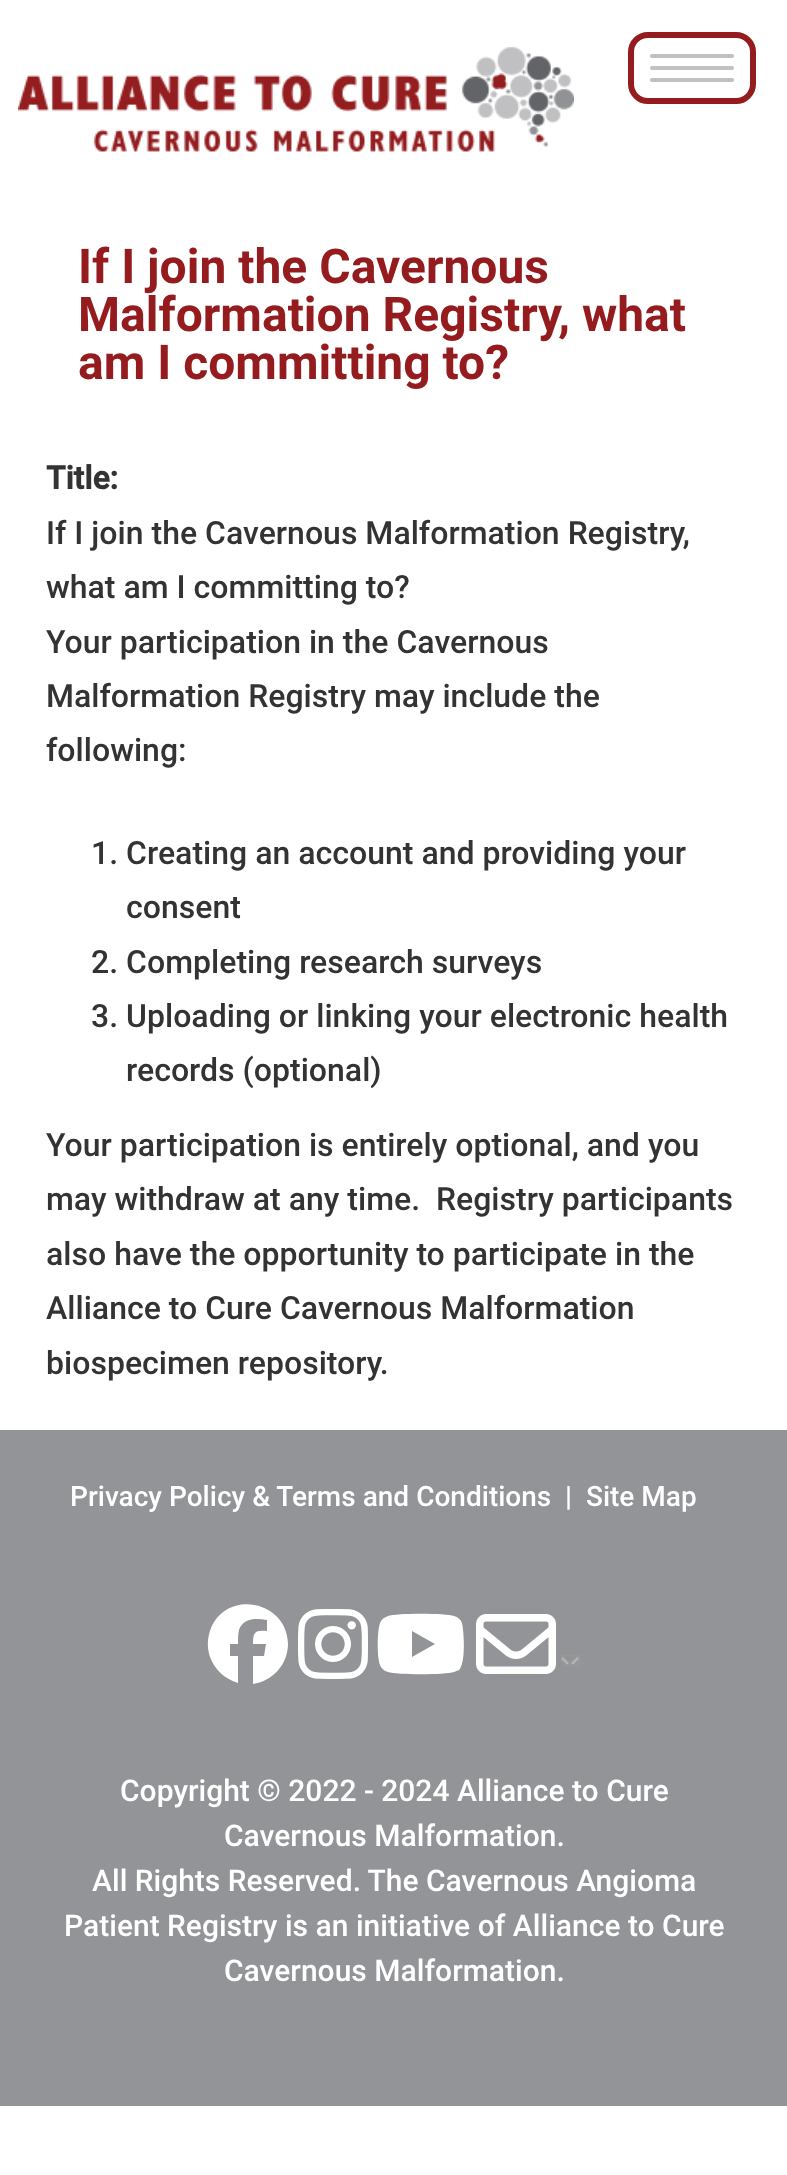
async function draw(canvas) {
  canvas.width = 787;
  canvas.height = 2175;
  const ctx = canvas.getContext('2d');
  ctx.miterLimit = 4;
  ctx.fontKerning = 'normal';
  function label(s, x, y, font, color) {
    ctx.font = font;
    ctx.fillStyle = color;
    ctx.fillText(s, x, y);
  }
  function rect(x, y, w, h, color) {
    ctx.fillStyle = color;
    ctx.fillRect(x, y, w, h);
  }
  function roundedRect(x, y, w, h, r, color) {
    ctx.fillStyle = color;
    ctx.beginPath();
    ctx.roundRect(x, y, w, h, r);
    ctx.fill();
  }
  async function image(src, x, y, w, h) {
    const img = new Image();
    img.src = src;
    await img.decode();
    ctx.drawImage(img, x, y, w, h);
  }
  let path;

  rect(0, 0, 787, 2175, '#fff');
  await image('assets/img1.png', 18, 46, 556, 106);
  ctx.beginPath();
  ctx.roundRect(631, 35, 122, 66, 17);
  ctx.strokeStyle = '#941c1e';
  ctx.lineWidth = 6;
  ctx.stroke();
  roundedRect(650, 54, 84, 4, 2, '#c0c1c3');
  roundedRect(650, 66, 84, 4, 2, '#c0c1c3');
  roundedRect(650, 78, 84, 4, 2, '#c0c1c3');
  label('If I join the Cavernous', 78, 283, 'bold 48px Roboto', '#941c1e');
  label('Malformation Registry, what', 78, 331, 'bold 48px Roboto', '#941c1e');
  label('am I committing to?', 78, 379, 'bold 48px Roboto', '#941c1e');
  label('Title:', 46, 489, 'bold 32px "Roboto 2"', '#333');
  label('If I join the Cavernous Malformation Registry,', 46, 544, '500 32px Roboto', '#333');
  label('what am I committing to?', 46, 598, '500 32px Roboto', '#333');
  label('Your participation in the Cavernous', 46, 653, '500 32px Roboto', '#333');
  label('Malformation Registry may include the', 46, 707, '500 32px Roboto', '#333');
  label('following:', 46, 761, '500 32px Roboto', '#333');
  label('1. Creating an account and providing your', 91, 864, '500 32px Roboto', '#333');
  label('consent', 126, 918, '500 32px Roboto', '#333');
  label('2. Completing research surveys', 91, 973, '500 32px Roboto', '#333');
  label('3. Uploading or linking your electronic health', 91, 1027, '500 32px Roboto', '#333');
  label('records (optional)', 126, 1081, '500 32px Roboto', '#333');
  label('Your participation is entirely optional, and you', 46, 1156, '500 32px Roboto', '#333');
  label('may withdraw at any time.  Registry participants', 46, 1210, '500 32px Roboto', '#333');
  label('also have the opportunity to participate in the', 46, 1265, '500 32px Roboto', '#333');
  label('Alliance to Cure Cavernous Malformation', 46, 1319, '500 32px Roboto', '#333');
  label('biospecimen repository.', 46, 1374, '500 32px Roboto', '#333');
  rect(0, 1430, 787, 676, '#939498');
  label('Privacy Policy & Terms and Conditions', 70, 1506, '500 28px Roboto', '#fff');
  label('|', 565, 1506, '500 28px Roboto', '#fff');
  label('Site Map', 586, 1506, '500 28px Roboto', '#fff');
  path = new Path2D('M288 1644C287 1601 228 1589 211 1628C207 1638 207 1648 210 1657C215 1670 225 1679 238 1683V1656H230V1644H238C238 1639 238 1634 239 1630C243 1618 256 1618 267 1620V1631C255 1630 253 1632 253 1644H266L264 1656H253V1684C273 1681 288 1664 288 1644Z');
  ctx.fill(path);
  await image('assets/img2.png', 298, 1609, 70, 70);
  path = new Path2D('M462 1623C461 1620 458 1617 454 1616C446 1613 396 1613 388 1616L384 1618C382 1619 381 1621 380 1623C377 1632 377 1657 380 1665C381 1668 384 1671 388 1672C397 1675 445 1675 454 1672L459 1670C466 1663 464 1632 462 1623ZM412 1657V1631V1657V1631L435 1644Z');
  ctx.fill(path);
  await image('assets/img3.png', 476, 1614, 80, 60);
  await image('assets/img4.png', 561, 1655, 19, 12);
  label('Copyright © 2022 - 2024 Alliance to Cure', 120, 1801, '500 30px Roboto', '#fff');
  label('Cavernous Malformation.', 224, 1846, '500 30px Roboto', '#fff');
  label('All Rights Reserved. The Cavernous Angioma', 92, 1891, '500 30px Roboto', '#fff');
  label('Patient Registry is an initiative of Alliance to Cure', 64, 1936, '500 30px Roboto', '#fff');
  label('Cavernous Malformation.', 224, 1981, '500 30px Roboto', '#fff');
}

draw(document.querySelector('canvas'));
